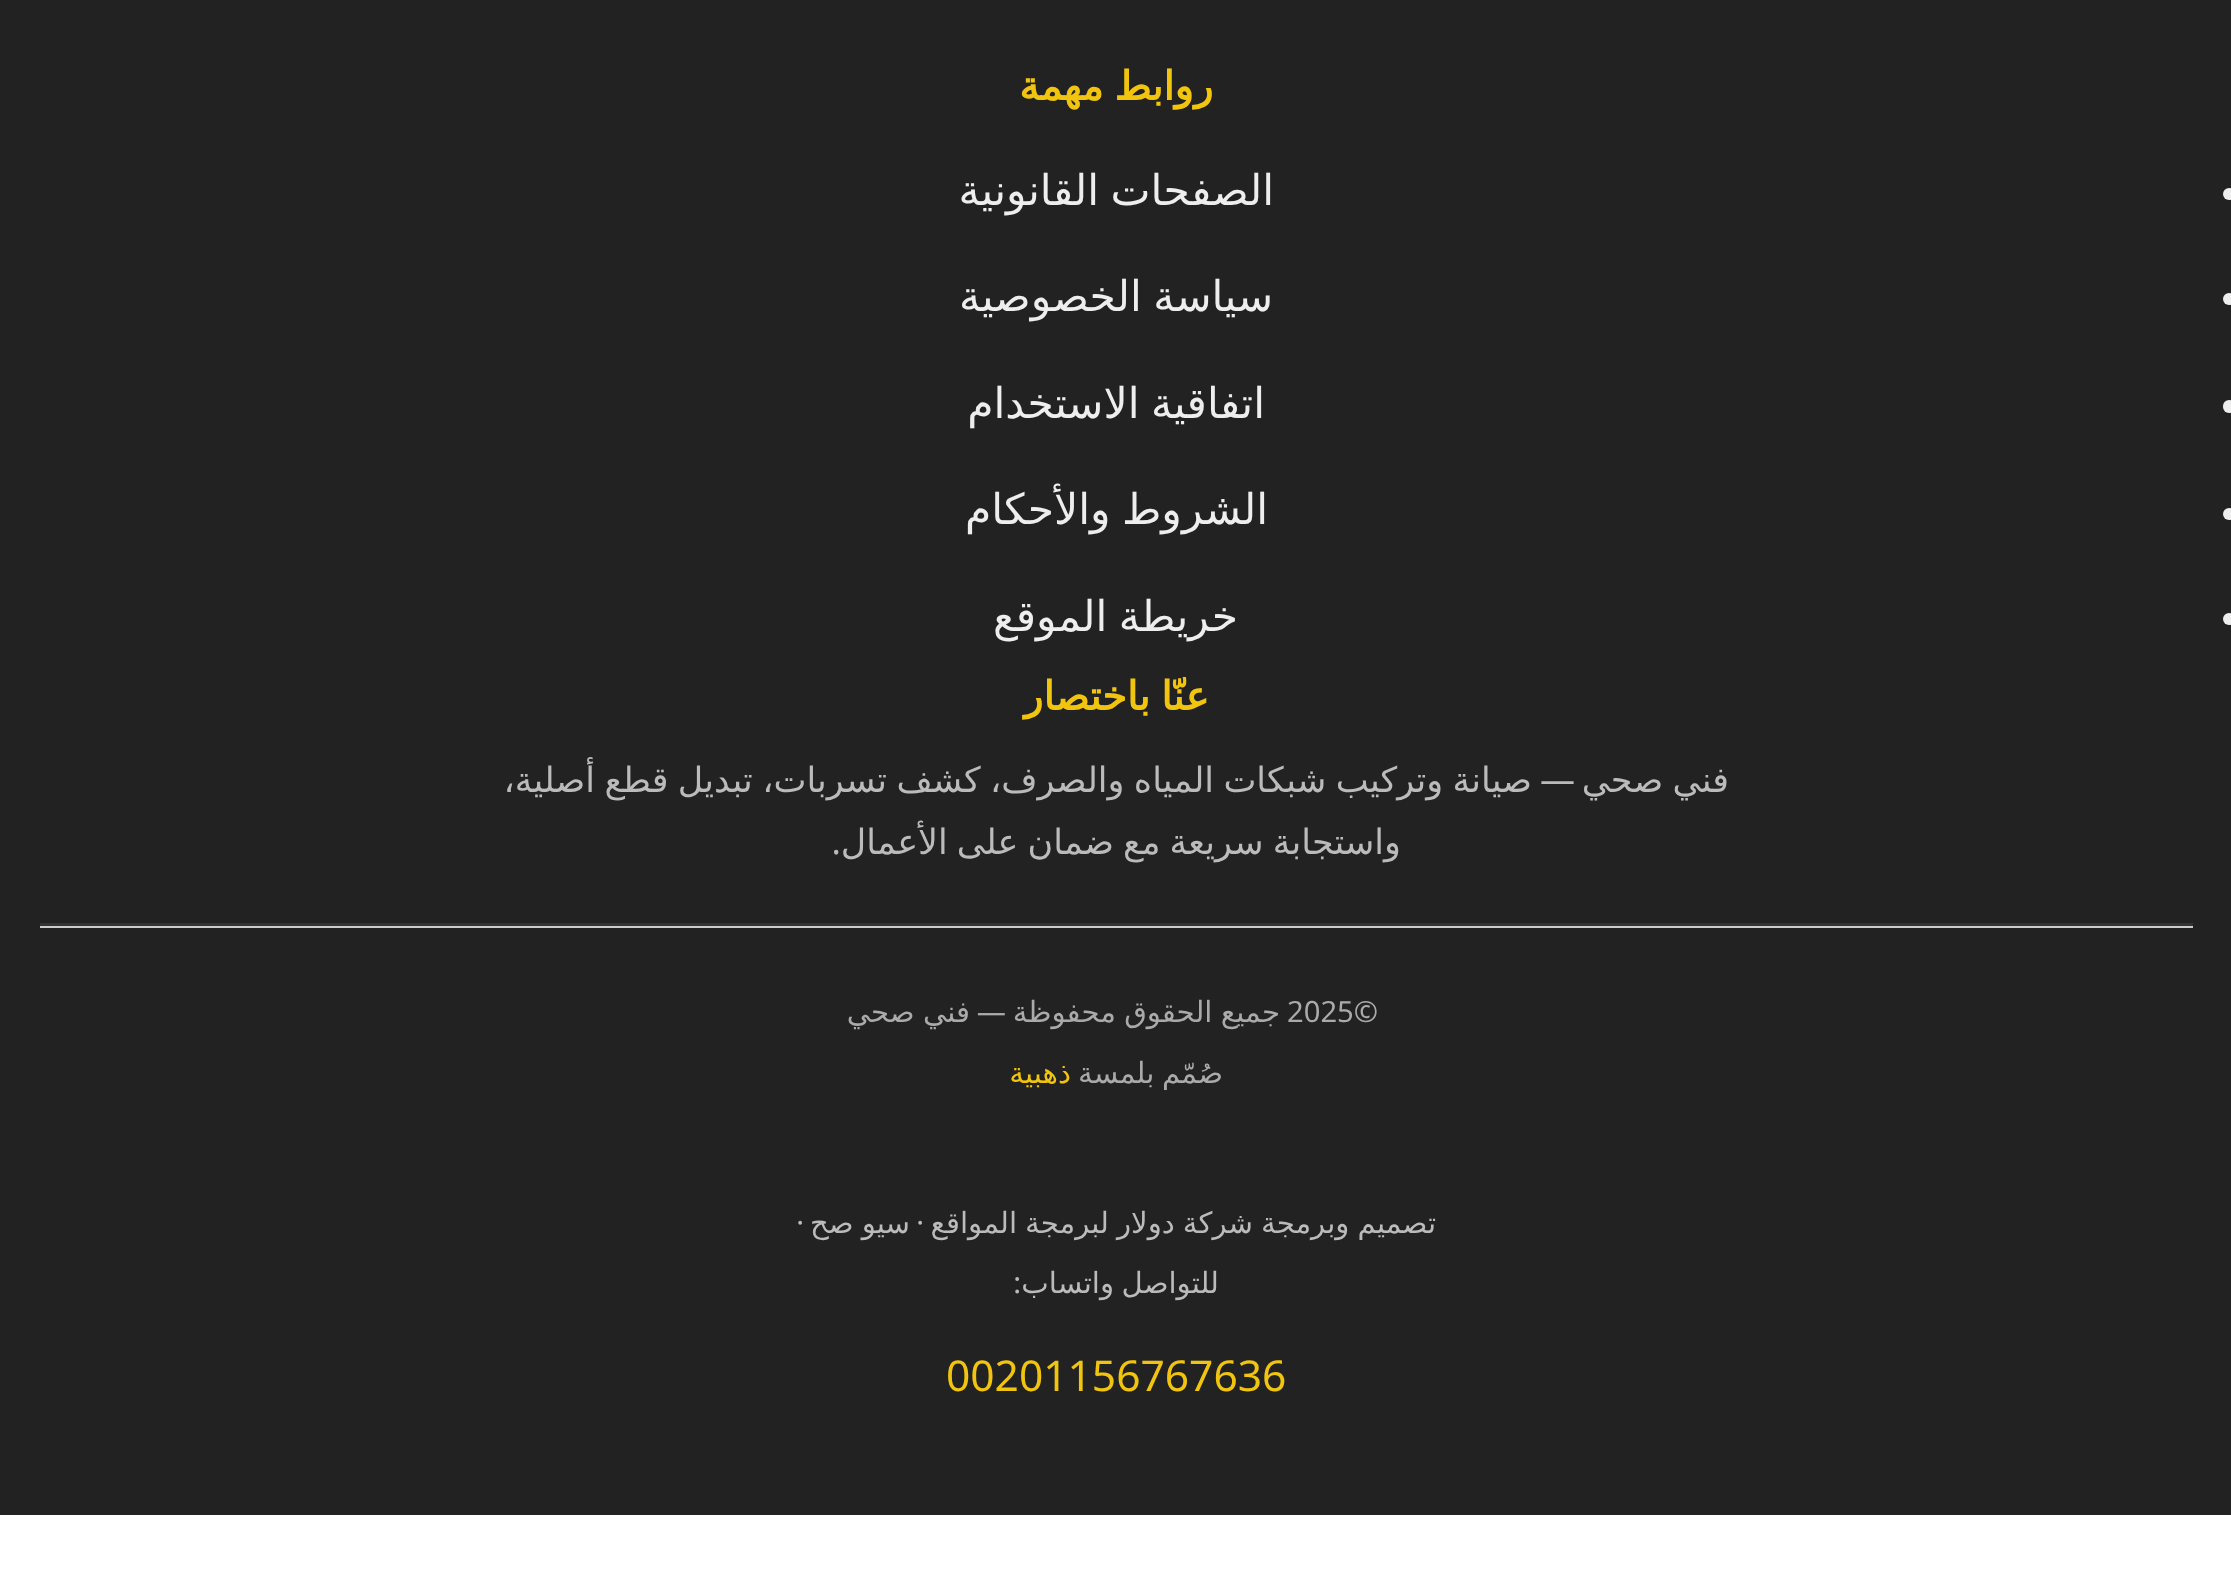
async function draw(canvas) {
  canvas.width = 2231;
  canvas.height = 1588;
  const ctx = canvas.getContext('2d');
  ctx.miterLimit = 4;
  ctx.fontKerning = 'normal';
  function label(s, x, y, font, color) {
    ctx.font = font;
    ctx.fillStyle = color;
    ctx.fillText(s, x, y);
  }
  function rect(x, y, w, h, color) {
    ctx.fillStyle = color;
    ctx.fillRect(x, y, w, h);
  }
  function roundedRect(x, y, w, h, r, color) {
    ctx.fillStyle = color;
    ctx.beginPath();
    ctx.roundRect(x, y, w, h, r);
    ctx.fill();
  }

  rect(0, 0, 2231, 1588, '#fff');
  rect(0, 0, 2231, 1515, '#222');
  ctx.wordSpacing = '-2px';
  ctx.direction = 'rtl';
  label('روابط مهمة', 1213, 100, 'bold 40px DejaVu Sans', '#f1c40f');
  ctx.fillStyle = '#eee';
  ctx.beginPath();
  ctx.arc(2229, 194, 6, 0, 2 * Math.PI);
  ctx.fill();
  label('الصفحات القانونية', 1274, 205, '42.5px DejaVu Sans', '#eee');
  ctx.beginPath();
  ctx.arc(2229, 299, 6, 0, 2 * Math.PI);
  ctx.fill();
  label('سياسة الخصوصية', 1273, 311, '42.5px DejaVu Sans', '#eee');
  roundedRect(2223, 400, 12, 13, 6, '#eee');
  label('اتفاقية الاستخدام', 1265, 418, '42.5px DejaVu Sans', '#eee');
  ctx.beginPath();
  ctx.arc(2229, 514, 6, 0, 2 * Math.PI);
  ctx.fill();
  label('الشروط والأحكام', 1268, 524, '42.5px DejaVu Sans', '#eee');
  ctx.beginPath();
  ctx.arc(2229, 619, 6, 0, 2 * Math.PI);
  ctx.fill();
  label('خريطة الموقع', 1238, 631, '42.5px DejaVu Sans', '#eee');
  label('عنّا باختصار', 1209, 710, 'bold 40px DejaVu Sans', '#f1c40f');
  ctx.wordSpacing = '-1.75px';
  label('فني صحي', 1729, 792, '35px DejaVu Sans', '#bbb');
  label('صيانة وتركيب شبكات المياه والصرف، كشف تسربات، تبديل قطع أصلية،', 1532, 792, '35px DejaVu Sans', '#bbb');
  ctx.wordSpacing = '0px';
  label('—', 1575, 792, '35px Noto Sans', '#bbb');
  ctx.wordSpacing = '-2px';
  label('واستجابة سريعة مع ضمان على الأعمال', 1401, 854, '35px DejaVu Sans', '#bbb');
  ctx.wordSpacing = '0px';
  label('.', 841, 854, '35px Noto Sans', '#bbb');
  rect(40, 926, 2153, 2, '#ccc');
  rect(40, 923, 2153, 3, '#333');
  ctx.direction = 'ltr';
  label('2025©', 1287, 1022, '29.2px Noto Sans', '#aaa');
  ctx.wordSpacing = '-1px';
  ctx.direction = 'rtl';
  label('جميع الحقوق محفوظة', 1280, 1022, '29.2px DejaVu Sans', '#aaa');
  ctx.wordSpacing = '0px';
  label('—', 1006, 1022, '29.2px Noto Sans', '#aaa');
  ctx.wordSpacing = '-1px';
  label('فني صحي', 970, 1022, '29.2px DejaVu Sans', '#aaa');
  ctx.wordSpacing = '-1.75px';
  label('صُمّم بلمسة', 1223, 1083, '29.2px DejaVu Sans', '#aaa');
  ctx.wordSpacing = '0px';
  label('ذهبية', 1071, 1083, '29.2px DejaVu Sans', '#f1c40f');
  ctx.wordSpacing = '-1.25px';
  label('تصميم وبرمجة شركة دولار لبرمجة المواقع', 1436, 1233, '29.2px DejaVu Sans', '#bbb');
  ctx.wordSpacing = '0px';
  label('·', 924, 1233, '29.2px Noto Sans', '#bbb');
  ctx.wordSpacing = '-1.25px';
  label('سيو صح', 910, 1233, '29.2px DejaVu Sans', '#bbb');
  ctx.wordSpacing = '0px';
  label('·', 804, 1233, '29.2px Noto Sans', '#bbb');
  ctx.wordSpacing = '-1.75px';
  label('للتواصل واتساب', 1219, 1293, '29.2px DejaVu Sans', '#bbb');
  ctx.wordSpacing = '0px';
  label(':', 1021, 1293, '29.2px Noto Sans', '#bbb');
  ctx.direction = 'ltr';
  label('00201156767636', 946, 1391, '42.5px Noto Sans', '#f1c40f');
}

draw(document.querySelector('canvas'));
